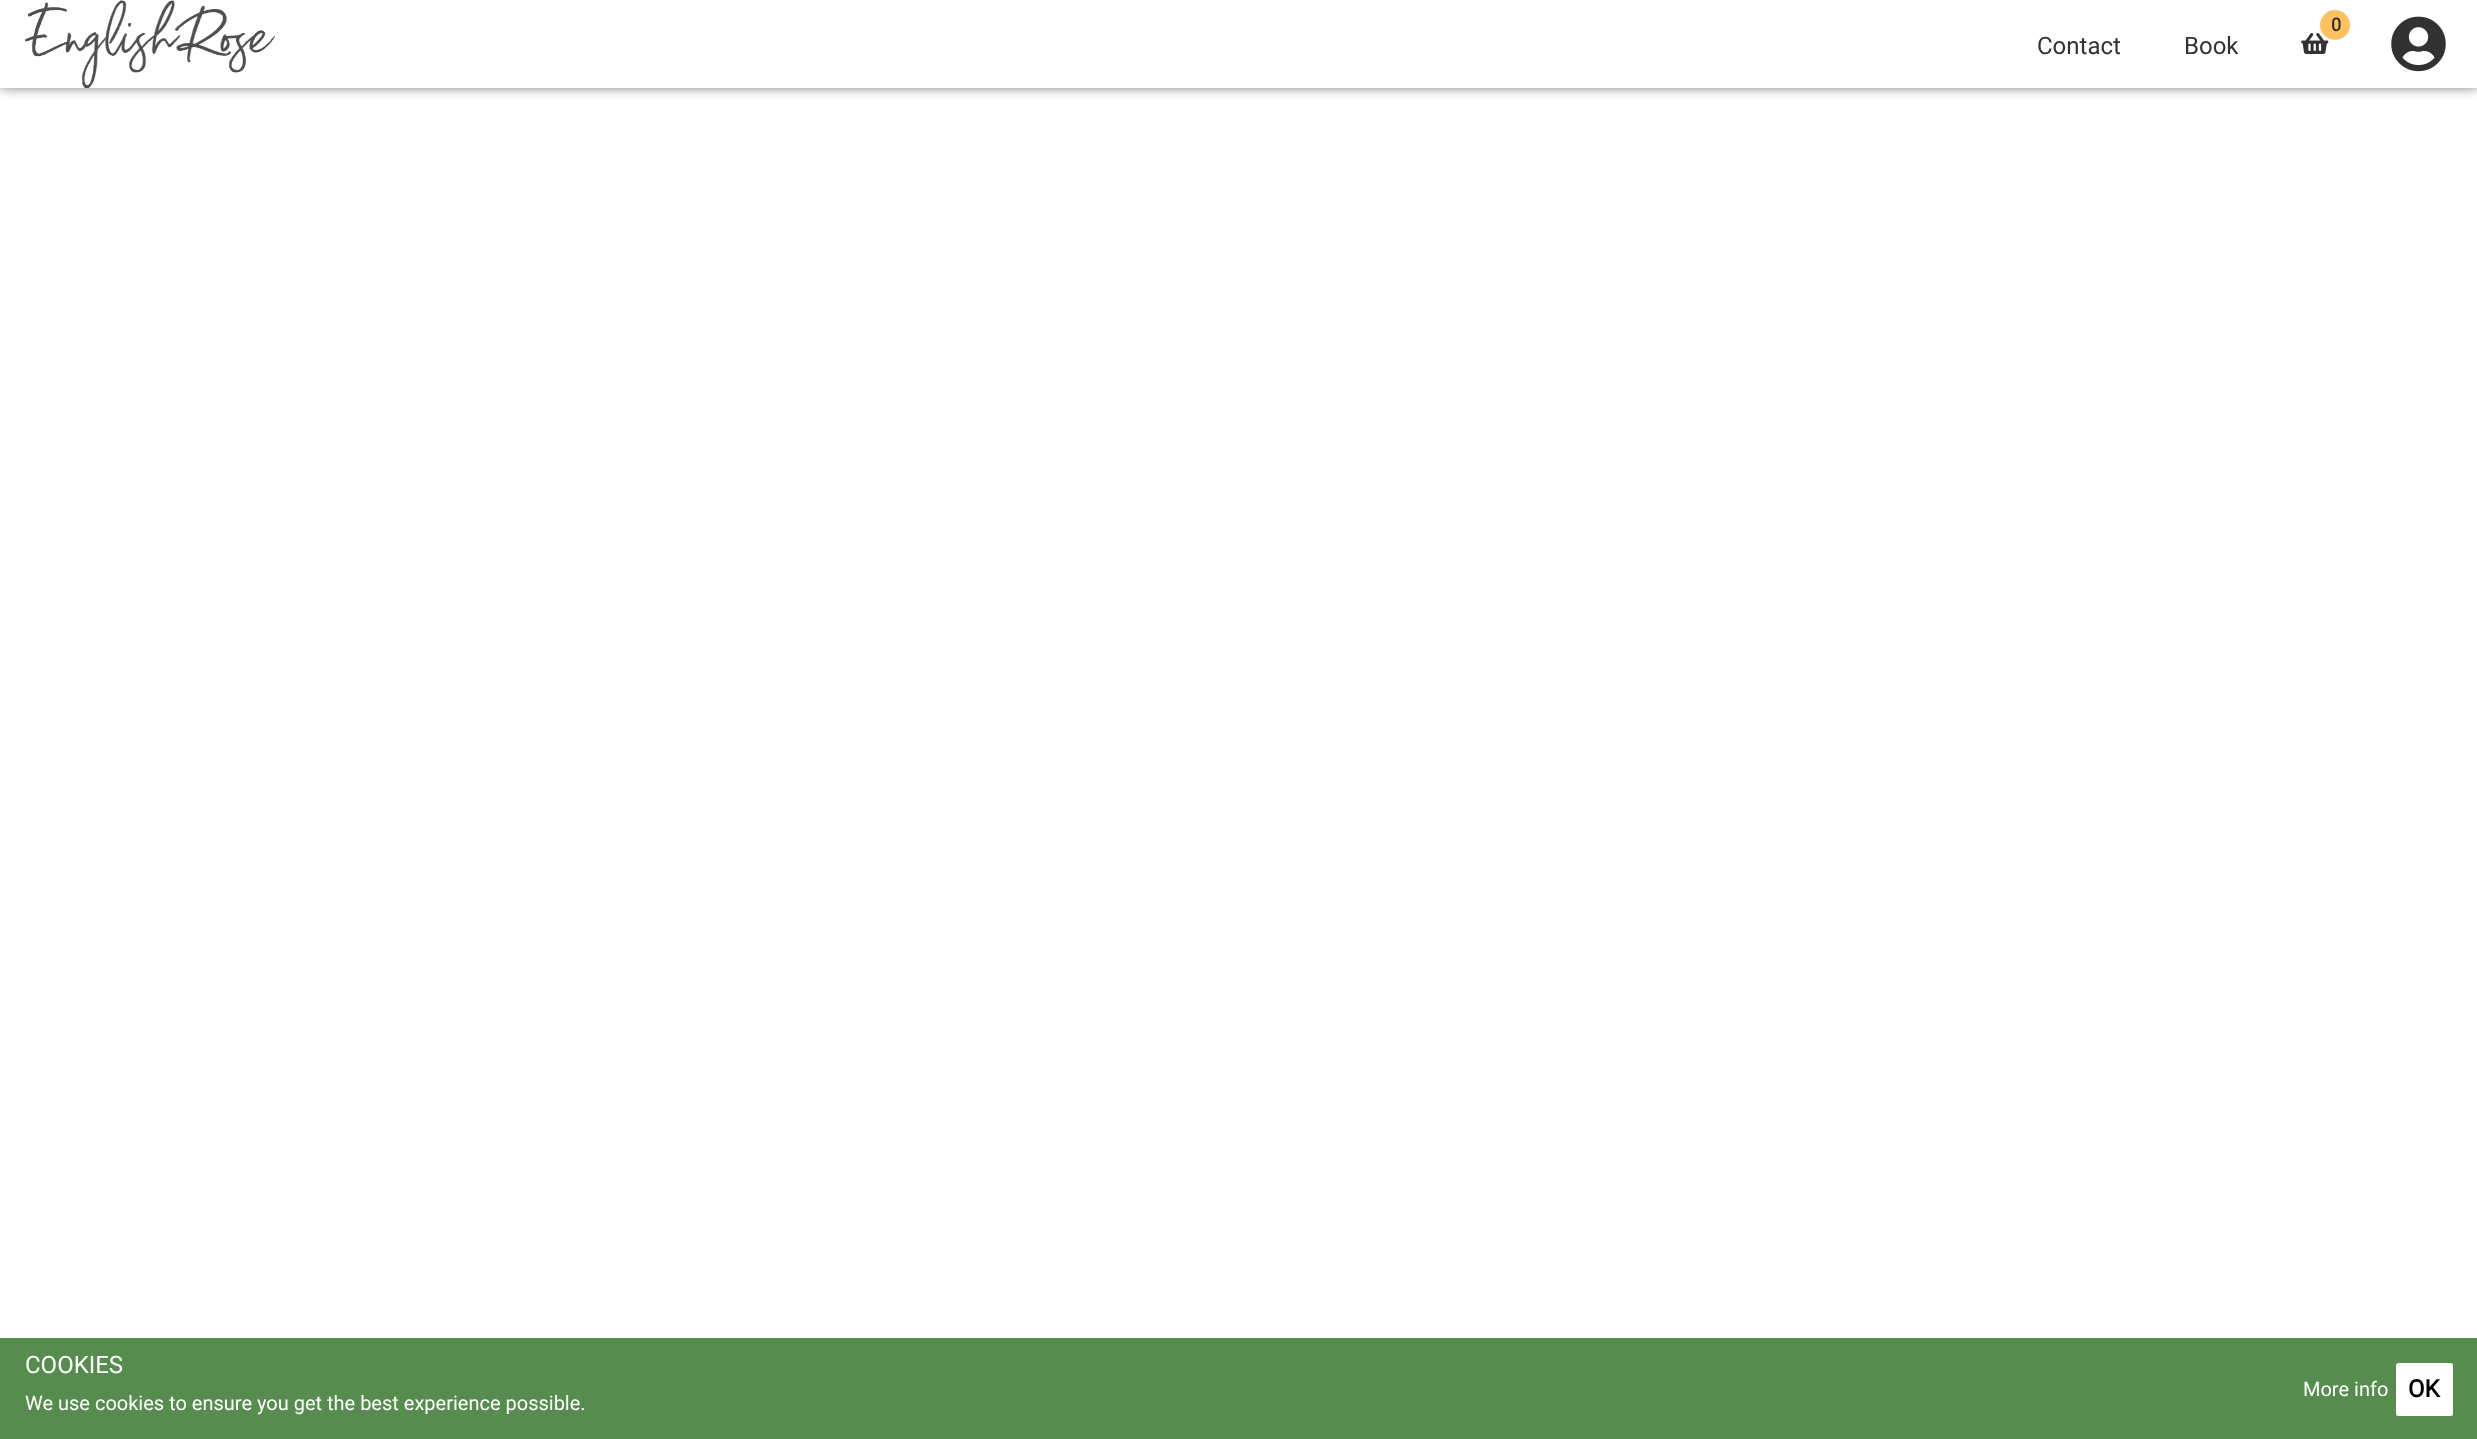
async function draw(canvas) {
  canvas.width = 2477;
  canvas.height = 1439;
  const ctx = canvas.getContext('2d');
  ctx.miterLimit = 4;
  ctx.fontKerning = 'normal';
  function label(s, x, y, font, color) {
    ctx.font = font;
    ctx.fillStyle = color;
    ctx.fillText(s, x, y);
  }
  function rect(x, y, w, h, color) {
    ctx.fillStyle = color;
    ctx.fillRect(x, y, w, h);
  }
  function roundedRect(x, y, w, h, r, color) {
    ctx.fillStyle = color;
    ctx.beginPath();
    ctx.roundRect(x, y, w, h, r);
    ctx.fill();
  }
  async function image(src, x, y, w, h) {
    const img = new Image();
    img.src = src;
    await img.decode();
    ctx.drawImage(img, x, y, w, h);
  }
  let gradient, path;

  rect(0, 0, 2477, 1439, '#fff');
  ctx.save();
  path = new Path2D('M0 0H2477V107H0ZM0 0H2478V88H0Z');
  ctx.clip(path, 'evenodd');
  ctx.fillStyle = '#00000080';
  ctx.filter = 'blur(6px)';
  ctx.beginPath();
  ctx.rect(0, 0, 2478, 88);
  ctx.fill();
  ctx.filter = 'none';
  ctx.restore();
  gradient = ctx.createLinearGradient(1239, 0, 1239, 88);
  gradient.addColorStop(0, '#fff');
  gradient.addColorStop(1, '#fffffff2');
  ctx.fillStyle = gradient;
  ctx.fillRect(0, 87, 2477, 1);
  await image('assets/img1.png', 25, 0, 250, 88);
  await image('assets/img2.png', 2301, 33, 28, 21);
  ctx.fillStyle = '#ffc15e';
  ctx.beginPath();
  ctx.arc(2335, 25, 15, 0, 2 * Math.PI);
  ctx.fill();
  label('0', 2331, 31, 'bold 18px Roboto', '#323232');
  await image('assets/img3.png', 2391, 16, 55, 56);
  label('Contact', 2037, 54, '24px Roboto', '#323232');
  label('Book', 2184, 54, '24px Roboto', '#323232');
  rect(0, 1338, 2477, 101, '#568d4e');
  label('COOKIES', 25, 1373, '24px Roboto', '#fff');
  label('We use cookies to ensure you get the best experience possible.', 25, 1410, '20px Roboto', '#fff');
  label('More info', 2303, 1396, '20px Roboto', '#fff');
  roundedRect(2396, 1363, 57, 53, 2.5, '#fff');
  label('OK', 2408, 1397, 'bold 24px Roboto', '#000');
}

draw(document.querySelector('canvas'));
